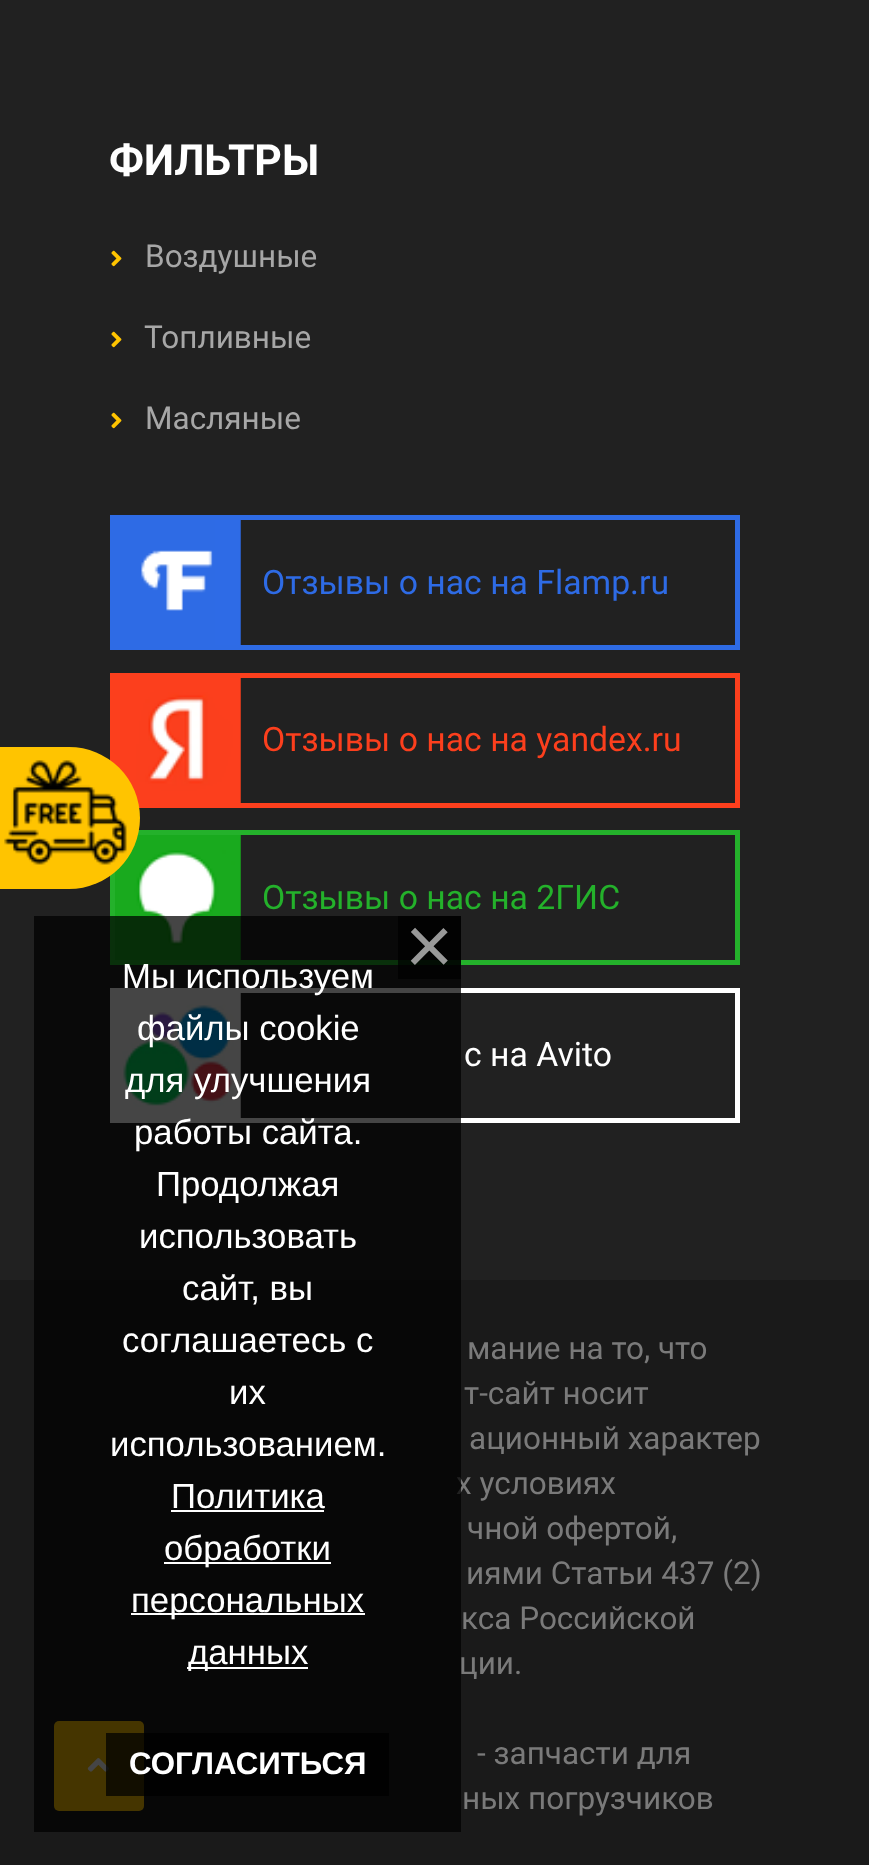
async function draw(canvas) {
  canvas.width = 869;
  canvas.height = 1865;
  const ctx = canvas.getContext('2d');
  ctx.miterLimit = 4;
  ctx.fontKerning = 'normal';
  function label(s, x, y, font, color) {
    ctx.font = font;
    ctx.fillStyle = color;
    ctx.fillText(s, x, y);
  }
  function rect(x, y, w, h, color) {
    ctx.fillStyle = color;
    ctx.fillRect(x, y, w, h);
  }
  function roundedRect(x, y, w, h, r, color) {
    ctx.fillStyle = color;
    ctx.beginPath();
    ctx.roundRect(x, y, w, h, r);
    ctx.fill();
  }
  async function image(src, x, y, w, h) {
    const img = new Image();
    img.src = src;
    await img.decode();
    ctx.drawImage(img, x, y, w, h);
  }

  rect(0, 0, 869, 1865, '#212121');
  await image('assets/img4.png', 115, 678, 126, 125);
  ctx.strokeStyle = '#fc3f1d';
  ctx.lineWidth = 5;
  ctx.strokeRect(112.5, 675.5, 625, 130);
  await image('assets/img5.png', 115, 835, 126, 125);
  ctx.strokeStyle = '#24b12b';
  ctx.strokeRect(112.5, 832.5, 625, 130);
  roundedRect(-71, 747, 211, 142, 71, '#ffc400');
  await image('assets/img1.png', 4, 760, 123, 105);
  label('ФИЛЬТРЫ', 109, 175, 'bold 42.75px Roboto', '#fff');
  await image('assets/img2.png', 111, 250, 11, 17);
  label('Воздушные', 145, 267, '31.5px Roboto', '#a7a7a7');
  await image('assets/img2.png', 111, 331, 11, 17);
  label('Топливные', 144, 348, '31.5px Roboto', '#a7a7a7');
  await image('assets/img2.png', 111, 412, 11, 17);
  label('Масляные', 145, 429, '31.5px Roboto', '#a7a7a7');
  await image('assets/img3.png', 115, 520, 126, 125);
  ctx.strokeStyle = '#2e6be5';
  ctx.strokeRect(112.5, 517.5, 625, 130);
  label('Отзывы о нас на Flamp.ru', 262, 594, '33.75px Roboto', '#2e6be5');
  label('Отзывы о нас на yandex.ru', 262, 751, '33.75px Roboto', '#fc3f1d');
  label('Отзывы о нас на 2ГИС', 262, 909, '33.75px Roboto', '#24b12b');
  await image('assets/img6.png', 115, 993, 126, 125);
  ctx.strokeStyle = '#fff';
  ctx.strokeRect(112.5, 990.5, 625, 130);
  label('с на Avito', 464, 1066, '33.75px Roboto', '#fff');
  rect(0, 1280, 869, 585, '#1a1a1a');
  label('мание на то, что', 467, 1359, '31.5px Roboto', '#7a7a7a');
  label('т-сайт носит', 464, 1404, '31.5px Roboto', '#7a7a7a');
  label('ационный характер', 469, 1449, '31.5px Roboto', '#7a7a7a');
  label('х условиях', 456, 1494, '31.5px Roboto', '#7a7a7a');
  label('чной офертой,', 467, 1539, '31.5px Roboto', '#7a7a7a');
  label('иями Статьи 437 (2)', 466, 1584, '31.5px Roboto', '#7a7a7a');
  label('кса Российской', 461, 1629, '31.5px Roboto', '#7a7a7a');
  label('ции.', 459, 1674, '31.5px Roboto', '#7a7a7a');
  label('- запчасти для', 477, 1764, '31.5px Roboto', '#7a7a7a');
  label('ных погрузчиков', 462, 1809, '31.5px Roboto', '#7a7a7a');
  roundedRect(54, 1721, 90, 90, 5, '#ffc400');
  await image('assets/img7.png', 87, 1758, 22, 14);
  rect(34, 916, 427, 916, '#000000ba');
  rect(398, 916, 63, 63, '#000000ba');
  label('×', 405, 974, '83px Liberation Sans', '#999');
  rect(106, 1733, 283, 63, '#000000ba');
  label('СОГЛАСИТЬСЯ', 129, 1774, 'bold 31.25px Liberation Sans', '#fff');
  label('Мы используем', 122, 988, '34.75px Liberation Sans', '#fff');
  label('файлы cookie', 137, 1040, '34.75px Liberation Sans', '#fff');
  label('для улучшения', 125, 1092, '34.75px Liberation Sans', '#fff');
  label('работы сайта.', 134, 1144, '34.75px Liberation Sans', '#fff');
  label('Продолжая', 156, 1196, '34.75px Liberation Sans', '#fff');
  label('использовать', 139, 1248, '34.75px Liberation Sans', '#fff');
  label('сайт, вы', 182, 1300, '34.75px Liberation Sans', '#fff');
  label('соглашаетесь с', 122, 1352, '34.75px Liberation Sans', '#fff');
  label('их', 229, 1404, '34.75px Liberation Sans', '#fff');
  label('использованием.', 110, 1456, '34.75px Liberation Sans', '#fff');
  label('Политика', 171, 1508, '34.75px Liberation Sans', '#fff');
  rect(171, 1510, 153, 2, '#fff');
  rect(164, 1562, 167, 2, '#fff');
  label('обработки', 164, 1560, '34.75px Liberation Sans', '#fff');
  rect(131, 1613, 234, 2, '#fff');
  label('персональных', 131, 1612, '34.75px Liberation Sans', '#fff');
  rect(187, 1667, 121, 2, '#fff');
  label('данных', 188, 1664, '34.75px Liberation Sans', '#fff');
}

draw(document.querySelector('canvas'));
